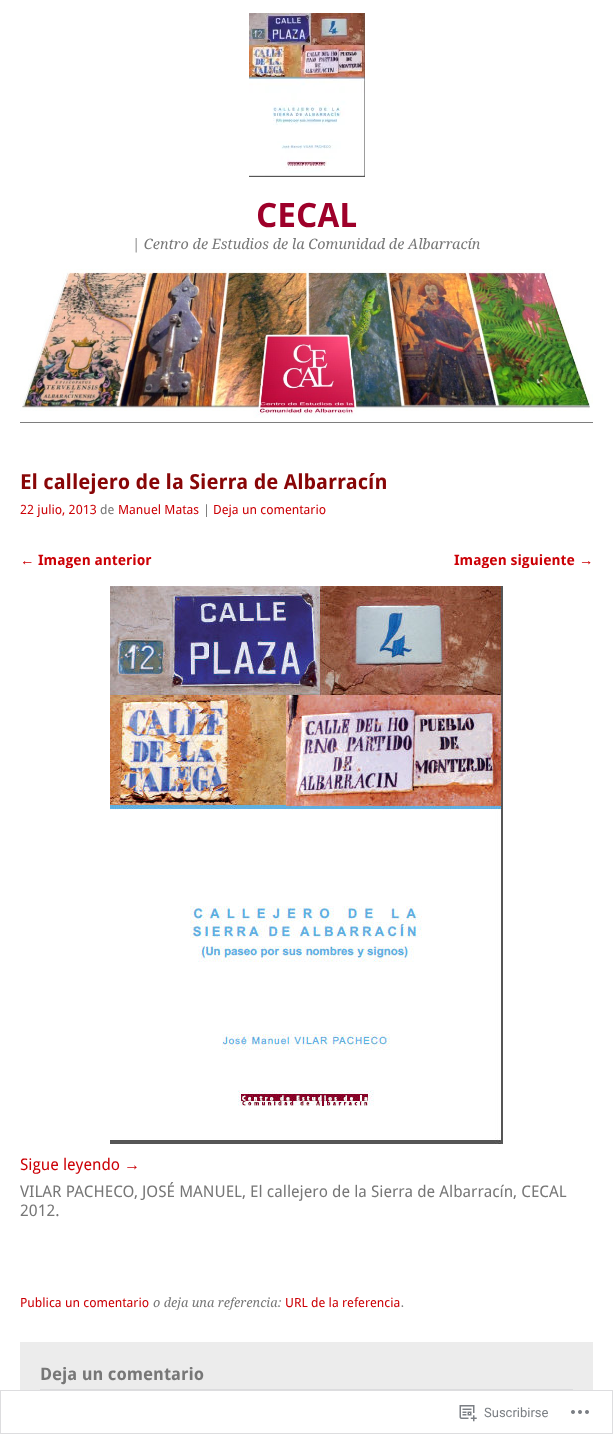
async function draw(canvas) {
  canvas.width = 613;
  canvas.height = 1434;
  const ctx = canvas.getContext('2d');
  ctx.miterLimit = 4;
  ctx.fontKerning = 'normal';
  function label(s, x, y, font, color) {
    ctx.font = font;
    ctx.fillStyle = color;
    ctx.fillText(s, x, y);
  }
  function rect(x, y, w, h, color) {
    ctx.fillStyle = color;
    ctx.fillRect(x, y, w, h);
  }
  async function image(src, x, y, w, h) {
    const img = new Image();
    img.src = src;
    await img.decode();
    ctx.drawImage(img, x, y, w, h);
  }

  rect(0, 0, 613, 1434, '#fff');
  await image('assets/img1.png', 249, 13, 116, 164);
  label('CECAL', 256, 227, 'bold 33.5px Droid Sans', '#9e002a');
  label('| Centro de Estudios de la Comunidad de Albarracín', 132, 249, 'italic 14.4px Droid Serif', '#777');
  await image('assets/img2.png', 20, 269, 573, 149);
  rect(20, 422, 573, 1, '#7e7e7e');
  label('El callejero de la Sierra de Albarracín', 20, 489, 'bold 20.75px Droid Sans', '#880607');
  label('22 julio, 2013', 20, 514, '12.75px Droid Sans', '#cc0006');
  label('de', 100, 514, '12.75px Droid Sans', '#777');
  label('Manuel Matas', 118, 514, '12.75px Droid Sans', '#cc0006');
  label('|', 203, 514, '12.75px Droid Sans', '#777');
  label('Deja un comentario', 213, 514, '12.75px Droid Sans', '#cc0006');
  label('←', 20, 565, 'bold 14.4px Liberation Sans', '#cc0006');
  ctx.save();
  ctx.beginPath();
  ctx.rect(20, 552, 573, 16);
  ctx.clip();
  label('Imagen anterior', 38, 565, 'bold 14.4px Droid Sans', '#cc0006');
  label('Imagen siguiente', 454, 565, 'bold 14.4px Droid Sans', '#cc0006');
  ctx.restore();
  label('→', 579, 565, 'bold 14.4px Liberation Sans', '#cc0006');
  await image('assets/img3.png', 110, 586, 393, 558);
  label('Sigue leyendo', 20, 1170, '16px Droid Sans', '#cc0006');
  label('→', 124, 1170, '16px Liberation Sans', '#cc0006');
  label('VILAR PACHECO, JOSÉ MANUEL, El callejero de la Sierra de Albarracín, CECAL', 20, 1197, '16px Droid Sans', '#777');
  label('2012.', 20, 1216, '16px Droid Sans', '#777');
  label('Publica un comentario', 20, 1307, '12.75px Droid Sans', '#cc0006');
  label('o deja una referencia:', 153, 1307, 'italic 12.75px Droid Serif', '#777');
  label('URL de la referencia', 285, 1307, '12.75px Droid Sans', '#cc0006');
  label('.', 401, 1307, 'italic 12.75px Droid Serif', '#777');
  rect(20, 1342, 573, 69, '#ececec');
  label('Deja un comentario', 40, 1380, 'bold 17.25px Droid Sans', '#777');
  rect(40, 1389, 533, 2, '#dcdcde');
  rect(20, 1390, 573, 21, '#fffffffa');
  ctx.strokeStyle = '#dcdcdefa';
  ctx.strokeRect(0.5, 1390.5, 612, 43);
  await image('assets/img4.png', 459, 1405, 18, 17);
  label('Suscribirse', 484, 1417, '13px Roboto', '#7b7f84');
  await image('assets/img5.png', 571, 1410, 18, 4);
}

draw(document.querySelector('canvas'));
